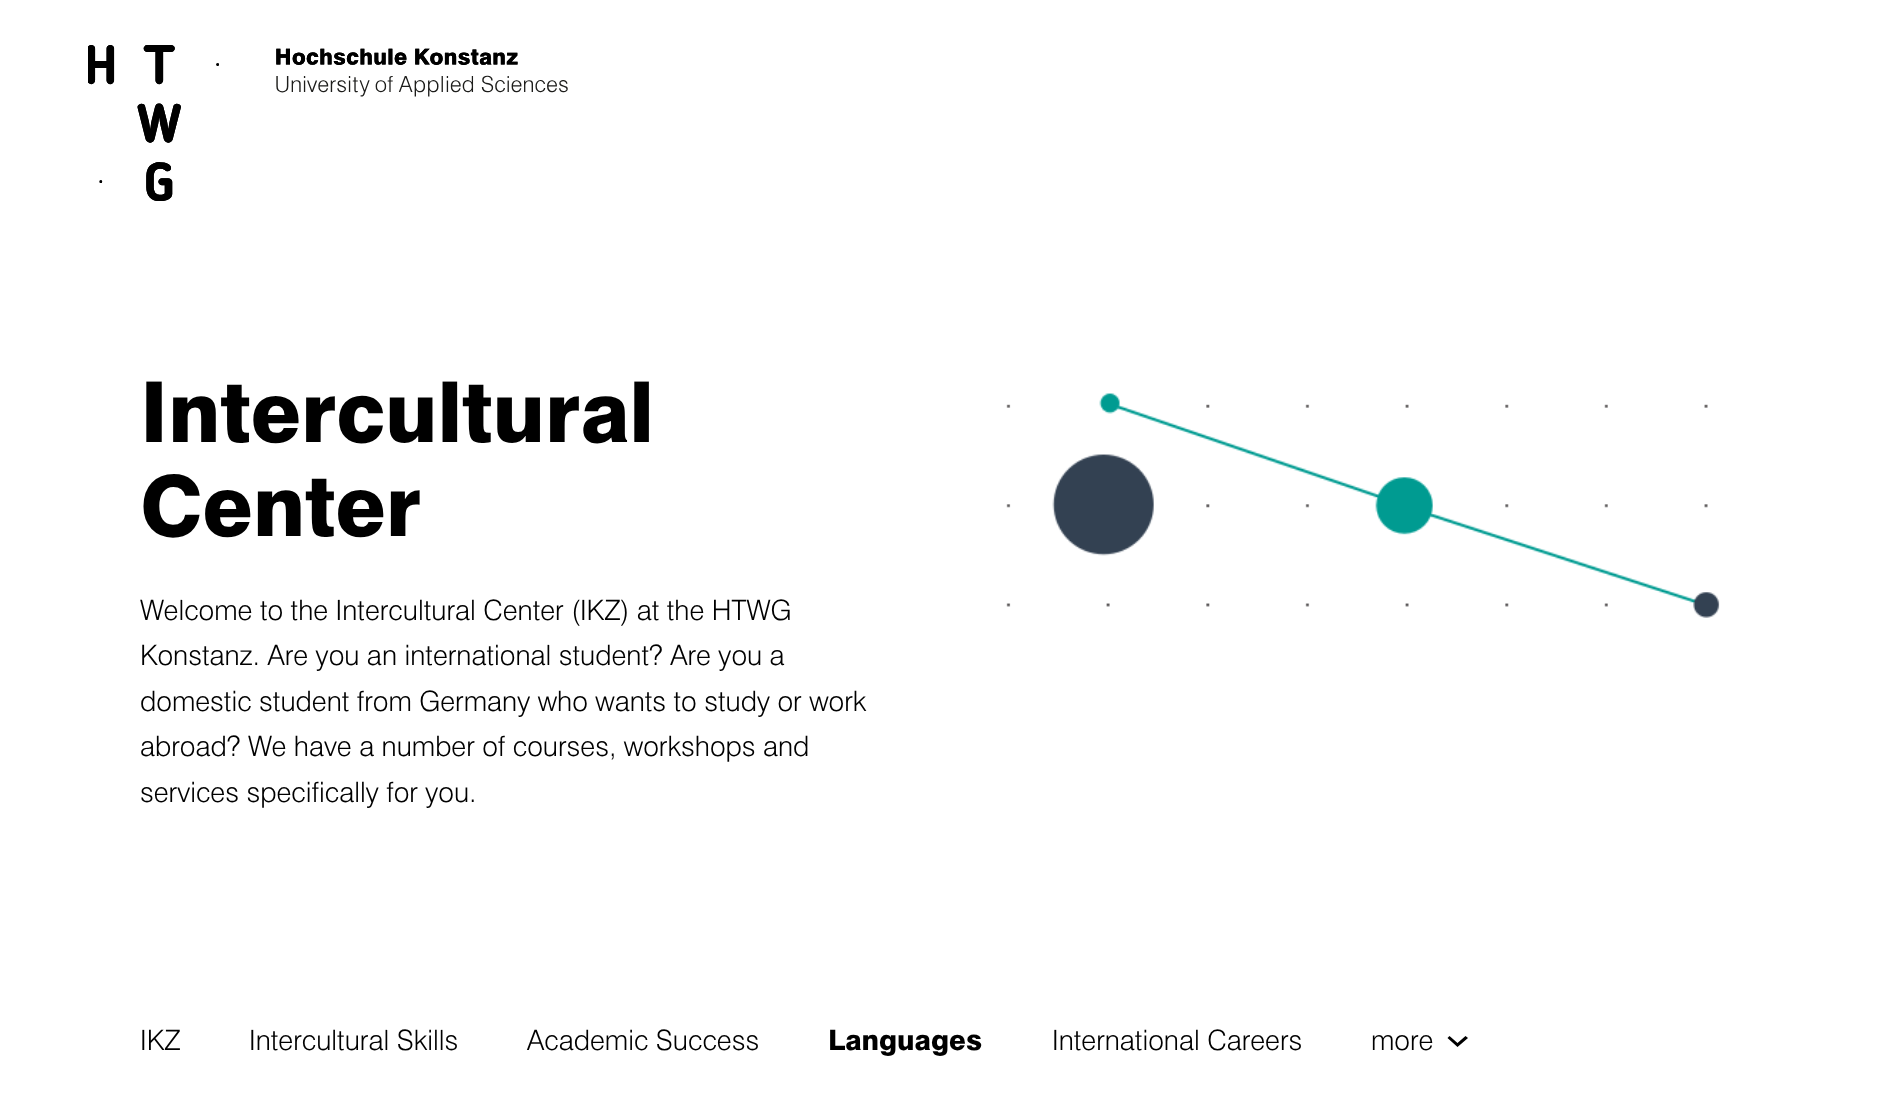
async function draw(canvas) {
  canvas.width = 1882;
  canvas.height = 1112;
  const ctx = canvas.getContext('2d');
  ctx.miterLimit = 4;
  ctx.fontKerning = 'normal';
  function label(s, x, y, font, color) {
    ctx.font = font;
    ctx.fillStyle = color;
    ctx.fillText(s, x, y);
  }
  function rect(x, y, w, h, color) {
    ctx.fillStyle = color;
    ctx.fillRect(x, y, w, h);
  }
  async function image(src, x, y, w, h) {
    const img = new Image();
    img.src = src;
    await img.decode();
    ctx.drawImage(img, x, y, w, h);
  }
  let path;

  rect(0, 0, 1882, 1112, '#fff');
  await image('assets/img1.png', 88, 45, 480, 156);
  label('Intercultural', 140, 442, '900 84px "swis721"', '#000');
  label('Center', 140, 536, '900 84px "swis721"', '#000');
  label('Welcome to the Intercultural Center (IKZ) at the HTWG', 140, 620, '300 28px "swis721"', '#000');
  label('Konstanz. Are you an international student? Are you a', 140, 665, '300 28px "swis721"', '#000');
  label('domestic student from Germany who wants to study or work', 140, 711, '300 28px "swis721"', '#000');
  label('abroad? We have a number of courses, workshops and', 140, 756, '300 28px "swis721"', '#000');
  label('services specifically for you.', 140, 802, '300 28px "swis721"', '#000');
  await image('assets/img2.png', 1006, 393, 714, 225);
  label('IKZ', 140, 1050, '300 28px "swis721"', '#000');
  label('Intercultural Skills', 249, 1050, '300 28px "swis721"', '#000');
  label('Academic Success', 527, 1050, '300 28px "swis721"', '#000');
  label('Languages', 828, 1050, '900 28px "swis721"', '#000');
  label('International Careers', 1052, 1050, '300 28px "swis721"', '#000');
  label('more', 1371, 1050, '300 28px "swis721"', '#000');
  path = new Path2D('M1449.5 1036L1447.5 1038L1457.5 1047L1468 1038L1465.5 1036L1457.5 1043Z');
  ctx.fill(path);
}

draw(document.querySelector('canvas'));
